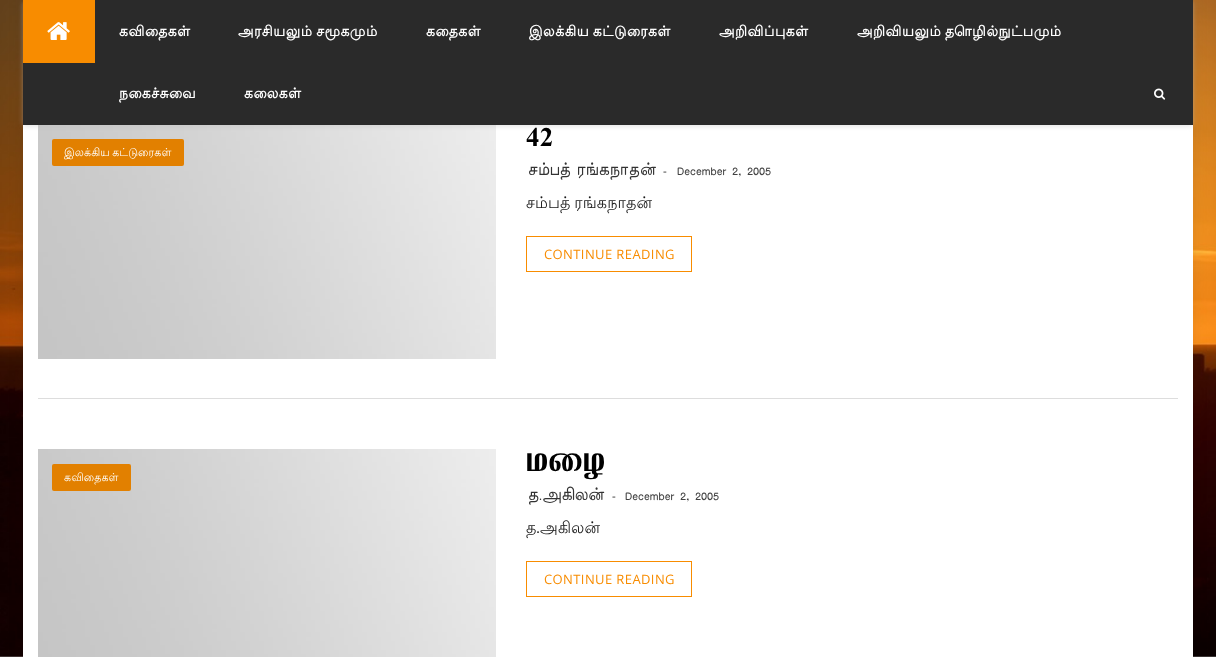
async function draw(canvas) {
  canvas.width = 1216;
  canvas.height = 657;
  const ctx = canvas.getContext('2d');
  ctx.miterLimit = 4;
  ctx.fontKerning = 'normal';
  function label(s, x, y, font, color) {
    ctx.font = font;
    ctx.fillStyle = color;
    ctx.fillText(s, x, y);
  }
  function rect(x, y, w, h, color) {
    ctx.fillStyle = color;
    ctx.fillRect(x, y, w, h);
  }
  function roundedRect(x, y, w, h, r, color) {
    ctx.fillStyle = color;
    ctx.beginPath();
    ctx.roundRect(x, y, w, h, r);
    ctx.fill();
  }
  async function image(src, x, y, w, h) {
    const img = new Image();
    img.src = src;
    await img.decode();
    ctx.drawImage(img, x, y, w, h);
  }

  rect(0, 0, 1216, 657, '#fff');
  await image('assets/img1.png', 0, 0, 1216, 657);
  ctx.fillStyle = '#0000001a';
  ctx.filter = 'blur(7.5px)';
  ctx.beginPath();
  ctx.rect(23, -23, 1170, 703);
  ctx.fill();
  ctx.filter = 'none';
  rect(23, 125, 1170, 532, '#fff');
  await image('assets/img4.png', 38, 125, 458, 234);
  ctx.fillStyle = '#bebebe75';
  ctx.filter = 'blur(2.5px)';
  ctx.beginPath();
  ctx.roundRect(23, 1, 1170, 125, 4);
  ctx.fill();
  ctx.filter = 'none';
  rect(23, 0, 1170, 125, '#2a2a2a');
  rect(23, 0, 72, 63, '#f88c00');
  await image('assets/img2.png', 47, 22, 23, 18);
  ctx.letterSpacing = '0.5px';
  label('கவிதைகள்', 119, 36, 'bold 14px Lohit Tamil', '#fff');
  ctx.wordSpacing = '-1px';
  label('அரசியலும் சமூகமும்', 238, 36, 'bold 14px Lohit Tamil', '#fff');
  ctx.wordSpacing = '0px';
  label('கதைகள்', 426, 36, 'bold 14px Lohit Tamil', '#fff');
  ctx.wordSpacing = '-1px';
  label('இலக்கிய கட்டுரைகள்', 529, 36, 'bold 14px Lohit Tamil', '#fff');
  ctx.wordSpacing = '0px';
  label('அறிவிப்புகள்', 719, 36, 'bold 14px Lohit Tamil', '#fff');
  ctx.wordSpacing = '-1px';
  label('அறிவியலும் தொழில்நுட்பமும்', 857, 36, 'bold 14px Lohit Tamil', '#fff');
  ctx.wordSpacing = '0px';
  label('நகைச்சுவை', 119, 98, 'bold 14px Lohit Tamil', '#fff');
  label('கலைகள்', 244, 98, 'bold 14px Lohit Tamil', '#fff');
  await image('assets/img3.png', 1154, 88, 12, 12);
  roundedRect(52, 139, 132, 27, 2, '#e28000');
  ctx.letterSpacing = '0.1px';
  ctx.wordSpacing = '-1px';
  label('இலக்கிய கட்டுரைகள்', 64, 156, '11px Lohit Tamil', '#fff');
  ctx.wordSpacing = '0px';
  label('42', 526, 146, 'bold 26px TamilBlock', '#000');
  label('சம்பத் ரங்கநாதன்', 528, 175, '12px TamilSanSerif', '#333');
  label('-', 663, 175, '11px TamilSanSerif', '#404040');
  label('December 2, 2005', 677, 175, '11px TamilSanSerif', '#404040');
  ctx.wordSpacing = '-1px';
  label('சம்பத் ரங்கநாதன்', 526, 208, '16px Lohit Tamil', '#181818');
  ctx.strokeStyle = '#f88c00';
  ctx.strokeRect(526.5, 236.5, 165, 35);
  ctx.letterSpacing = '0.4px';
  ctx.wordSpacing = '0px';
  label('CONTINUE READING', 544, 259, '13px Open Sans', '#f88c00');
  rect(38, 398, 1140, 1, '#ddd');
  await image('assets/img5.png', 38, 449, 458, 208);
  roundedRect(52, 464, 79, 27, 2, '#e28000');
  ctx.letterSpacing = '0.1px';
  label('கவிதைகள்', 64, 481, '11px Lohit Tamil', '#fff');
  label('மழை', 526, 471, 'bold 26px TamilBlock', '#000');
  label('த.அகிலன்', 528, 500, '12px TamilSanSerif', '#333');
  label('-', 612, 500, '11px TamilSanSerif', '#404040');
  label('December 2, 2005', 625, 500, '11px TamilSanSerif', '#404040');
  label('த', 526, 533, '16px Lohit Tamil', '#181818');
  label('.', 536, 533, '16px Roboto', '#181818');
  label('அகிலன்', 540, 533, '16px Lohit Tamil', '#181818');
  ctx.strokeRect(526.5, 561.5, 165, 35);
  ctx.letterSpacing = '0.4px';
  label('CONTINUE READING', 544, 584, '13px Open Sans', '#f88c00');
}

draw(document.querySelector('canvas'));
